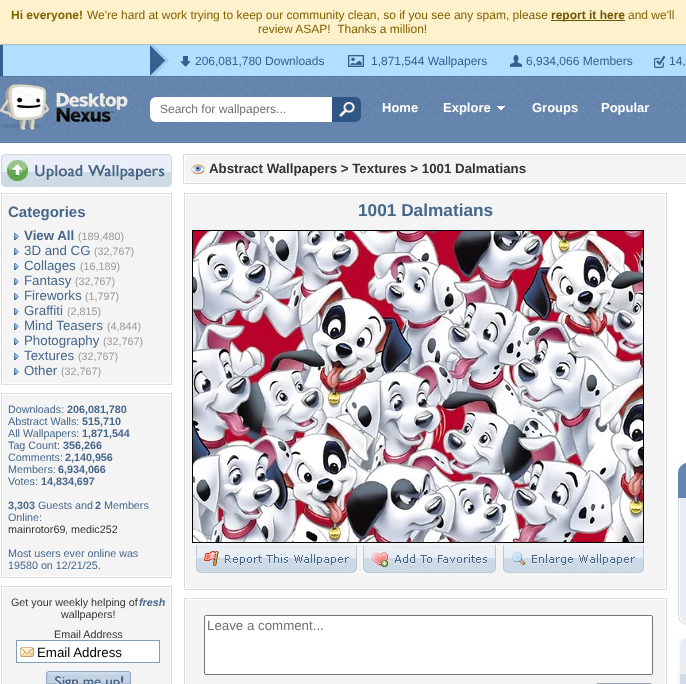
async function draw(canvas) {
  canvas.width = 686;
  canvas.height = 684;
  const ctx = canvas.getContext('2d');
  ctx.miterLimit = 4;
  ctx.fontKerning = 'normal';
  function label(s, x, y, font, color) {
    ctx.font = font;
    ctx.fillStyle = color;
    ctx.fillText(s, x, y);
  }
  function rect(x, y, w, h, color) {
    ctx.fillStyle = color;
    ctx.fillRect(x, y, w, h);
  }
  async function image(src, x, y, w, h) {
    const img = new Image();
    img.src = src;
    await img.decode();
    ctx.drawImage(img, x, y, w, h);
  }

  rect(0, 0, 686, 684, '#fff');
  rect(0, 0, 686, 44, '#fff1cb');
  label('Hi everyone!', 11, 19, 'bold 12px Liberation Sans', '#826200');
  label('We\'re hard at work trying to keep our community clean, so if you see any spam, please', 87, 19, '12px Liberation Sans', '#826200');
  rect(551, 20, 74, 1, '#705500');
  label('report it here', 551, 19, 'bold 12px Liberation Sans', '#705500');
  label('and we\'ll', 628, 19, '12px Liberation Sans', '#826200');
  label('review ASAP!  Thanks a million!', 258, 33, '12px Liberation Sans', '#826200');
  rect(3, 45, 683, 31, '#b1dfff');
  rect(0, 44, 686, 1, '#b6bac0');
  rect(0, 45, 3, 31, '#375e90');
  await image('assets/img1.png', 150, 45, 19, 31);
  await image('assets/img2.png', 180, 56, 11, 11);
  label('206,081,780 Downloads', 195, 65, '12px Liberation Sans', '#375e90');
  await image('assets/img3.png', 348, 55, 16, 12);
  label('1,871,544 Wallpapers', 371, 65, '12px Liberation Sans', '#375e90');
  await image('assets/img4.png', 510, 55, 12, 12);
  label('6,934,066 Members', 526, 65, '12px Liberation Sans', '#375e90');
  await image('assets/img5.png', 654, 56, 11, 12);
  label('14,', 669, 65, '12px Liberation Sans', '#375e90');
  await image('assets/img6.png', 0, 76, 686, 67);
  await image('assets/img7.png', 0, 84, 128, 46);
  ctx.fillStyle = '#fff';
  ctx.beginPath();
  ctx.roundRect(150, 97, 198, 25, [6, 0, 0, 6]);
  ctx.fill();
  label('Search for wallpapers...', 160, 113, '12px Liberation Sans', '#707070');
  ctx.fillStyle = '#305686';
  ctx.beginPath();
  ctx.roundRect(332, 97, 29, 25, [0, 6, 6, 0]);
  ctx.fill();
  await image('assets/img8.png', 339, 102, 16, 15);
  label('Home', 382, 112, 'bold 13px Liberation Sans', '#fff');
  label('Explore', 443, 112, 'bold 13px Liberation Sans', '#fff');
  await image('assets/img9.png', 496, 106, 10, 5);
  label('Groups', 532, 112, 'bold 13px Liberation Sans', '#fff');
  label('Popular', 601, 112, 'bold 13px Liberation Sans', '#fff');
  await image('assets/img10.png', 1, 154, 171, 33);
  ctx.strokeStyle = '#dcdcdc';
  ctx.strokeRect(1.5, 193.5, 170, 191);
  rect(3, 195, 167, 188, '#f4f4f4');
  label('Categories', 8, 217, 'bold 15px Liberation Sans', '#46678a');
  await image('assets/img11.png', 14, 233, 5, 7);
  label('View All', 24, 240, 'bold 13.3px Liberation Sans', '#46678a');
  label('(189,480)', 78, 240, '10.75px Liberation Sans', '#999');
  await image('assets/img11.png', 14, 248, 5, 7);
  label('3D and CG', 24, 255, '13.3px Liberation Sans', '#46678a');
  label('(32,767)', 94, 255, '10.75px Liberation Sans', '#999');
  await image('assets/img11.png', 14, 263, 5, 7);
  label('Collages', 24, 270, '13.3px Liberation Sans', '#46678a');
  label('(16,189)', 80, 270, '10.75px Liberation Sans', '#999');
  await image('assets/img11.png', 14, 278, 5, 7);
  label('Fantasy', 24, 285, '13.3px Liberation Sans', '#46678a');
  label('(32,767)', 75, 285, '10.75px Liberation Sans', '#999');
  await image('assets/img11.png', 14, 293, 5, 7);
  label('Fireworks', 24, 300, '13.3px Liberation Sans', '#46678a');
  label('(1,797)', 85, 300, '10.75px Liberation Sans', '#999');
  await image('assets/img11.png', 14, 308, 5, 7);
  label('Graffiti', 24, 315, '13.3px Liberation Sans', '#46678a');
  label('(2,815)', 67, 315, '10.75px Liberation Sans', '#999');
  await image('assets/img11.png', 14, 323, 5, 7);
  label('Mind Teasers', 24, 330, '13.3px Liberation Sans', '#46678a');
  label('(4,844)', 107, 330, '10.75px Liberation Sans', '#999');
  await image('assets/img11.png', 14, 338, 5, 7);
  label('Photography', 24, 345, '13.3px Liberation Sans', '#46678a');
  label('(32,767)', 103, 345, '10.75px Liberation Sans', '#999');
  await image('assets/img11.png', 14, 353, 5, 7);
  label('Textures', 24, 360, '13.3px Liberation Sans', '#46678a');
  label('(32,767)', 78, 360, '10.75px Liberation Sans', '#999');
  await image('assets/img11.png', 14, 368, 5, 7);
  label('Other', 24, 375, '13.3px Liberation Sans', '#46678a');
  label('(32,767)', 61, 375, '10.75px Liberation Sans', '#999');
  ctx.strokeRect(1.5, 393.5, 170, 184);
  rect(3, 395, 167, 181, '#f4f4f4');
  label('Downloads:', 8, 413, '10.75px Liberation Sans', '#46678a');
  label('206,081,780', 67, 413, 'bold 10.75px Liberation Sans', '#46678a');
  label('Abstract Walls:', 8, 425, '10.75px Liberation Sans', '#46678a');
  label('515,710', 82, 425, 'bold 10.75px Liberation Sans', '#46678a');
  label('All Wallpapers:', 8, 437, '10.75px Liberation Sans', '#46678a');
  label('1,871,544', 82, 437, 'bold 10.75px Liberation Sans', '#46678a');
  label('Tag Count:', 8, 449, '10.75px Liberation Sans', '#46678a');
  label('356,266', 63, 449, 'bold 10.75px Liberation Sans', '#46678a');
  label('Comments:', 8, 461, '10.75px Liberation Sans', '#46678a');
  label('2,140,956', 65, 461, 'bold 10.75px Liberation Sans', '#46678a');
  label('Members:', 8, 473, '10.75px Liberation Sans', '#46678a');
  label('6,934,066', 58, 473, 'bold 10.75px Liberation Sans', '#46678a');
  label('Votes:', 8, 485, '10.75px Liberation Sans', '#46678a');
  label('14,834,697', 41, 485, 'bold 10.75px Liberation Sans', '#46678a');
  label('3,303', 8, 509, 'bold 10.75px Liberation Sans', '#46678a');
  label('Guests and', 38, 509, '10.75px Liberation Sans', '#46678a');
  label('2', 95, 509, 'bold 10.75px Liberation Sans', '#46678a');
  label('Members', 104, 509, '10.75px Liberation Sans', '#46678a');
  label('Online:', 8, 521, '10.75px Liberation Sans', '#46678a');
  label('mainrotor69', 8, 533, '10.75px Liberation Sans', '#333');
  label(',', 65, 533, '10.75px Liberation Sans', '#46678a');
  label('medic252', 71, 533, '10.75px Liberation Sans', '#333');
  label('Most users ever online was', 8, 557, '10.75px Liberation Sans', '#46678a');
  label('19580 on 12/21/25.', 8, 569, '10.75px Liberation Sans', '#46678a');
  ctx.strokeRect(1.5, 586.5, 170, 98);
  rect(3, 588, 167, 96, '#f4f4f4');
  label('Get your weekly helping of', 11, 606, '10.75px Liberation Sans', '#333');
  label('fresh', 139, 606, 'italic bold 10.75px Liberation Sans', '#46678a');
  label('wallpapers!', 61, 618, '10.75px Liberation Sans', '#333');
  label('Email Address', 54, 638, '10.75px Liberation Sans', '#333');
  rect(17, 641, 142, 21, '#fff');
  await image('assets/img12.png', 17, 647, 17, 10);
  ctx.strokeStyle = '#7f9db9';
  ctx.strokeRect(16.5, 640.5, 143, 22);
  label('Email Address', 37, 657, '13.3px Liberation Sans', '#000');
  await image('assets/img13.png', 46, 671, 85, 13);
  ctx.strokeStyle = '#dcdcdc';
  ctx.strokeRect(183.5, 154.5, 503, 29);
  rect(185, 156, 501, 26, '#f4f4f4');
  await image('assets/img14.png', 191, 164, 14, 10);
  label('Abstract Wallpapers > Textures > 1001 Dalmatians', 209, 173, 'bold 13.3px Liberation Sans', '#333');
  ctx.strokeRect(184.5, 193.5, 482, 396);
  rect(186, 195, 479, 393, '#f4f4f4');
  label('1001 Dalmatians', 358, 216, 'bold 17.25px Liberation Sans', '#46678a');
  ctx.strokeStyle = '#000';
  ctx.strokeRect(192.5, 230.5, 451, 312);
  await image('assets/img15.png', 193, 231, 450, 311);
  await image('assets/img16.png', 196, 545, 161, 28);
  await image('assets/img17.png', 363, 545, 133, 28);
  await image('assets/img18.png', 503, 545, 141, 28);
  ctx.strokeStyle = '#dcdcdc';
  ctx.strokeRect(184.5, 598.5, 482, 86);
  rect(186, 600, 479, 84, '#f4f4f4');
  ctx.fillStyle = '#fff';
  ctx.beginPath();
  ctx.roundRect(204.5, 615.5, 448, 59, 1.5);
  ctx.fill();
  ctx.strokeStyle = '#767676';
  ctx.stroke();
  label('Leave a comment...', 207, 630, '13.3px Liberation Sans', '#707070');
  await image('assets/img19.png', 595, 683, 58, 1);
  await image('assets/img20.png', 678, 463, 8, 35);
  rect(680, 498, 6, 118, '#e9eef4');
  await image('assets/img21.png', 678, 498, 2, 118);
  await image('assets/img22.png', 678, 616, 8, 9);
  await image('assets/img23.png', 678, 637, 8, 47);
}

draw(document.querySelector('canvas'));
